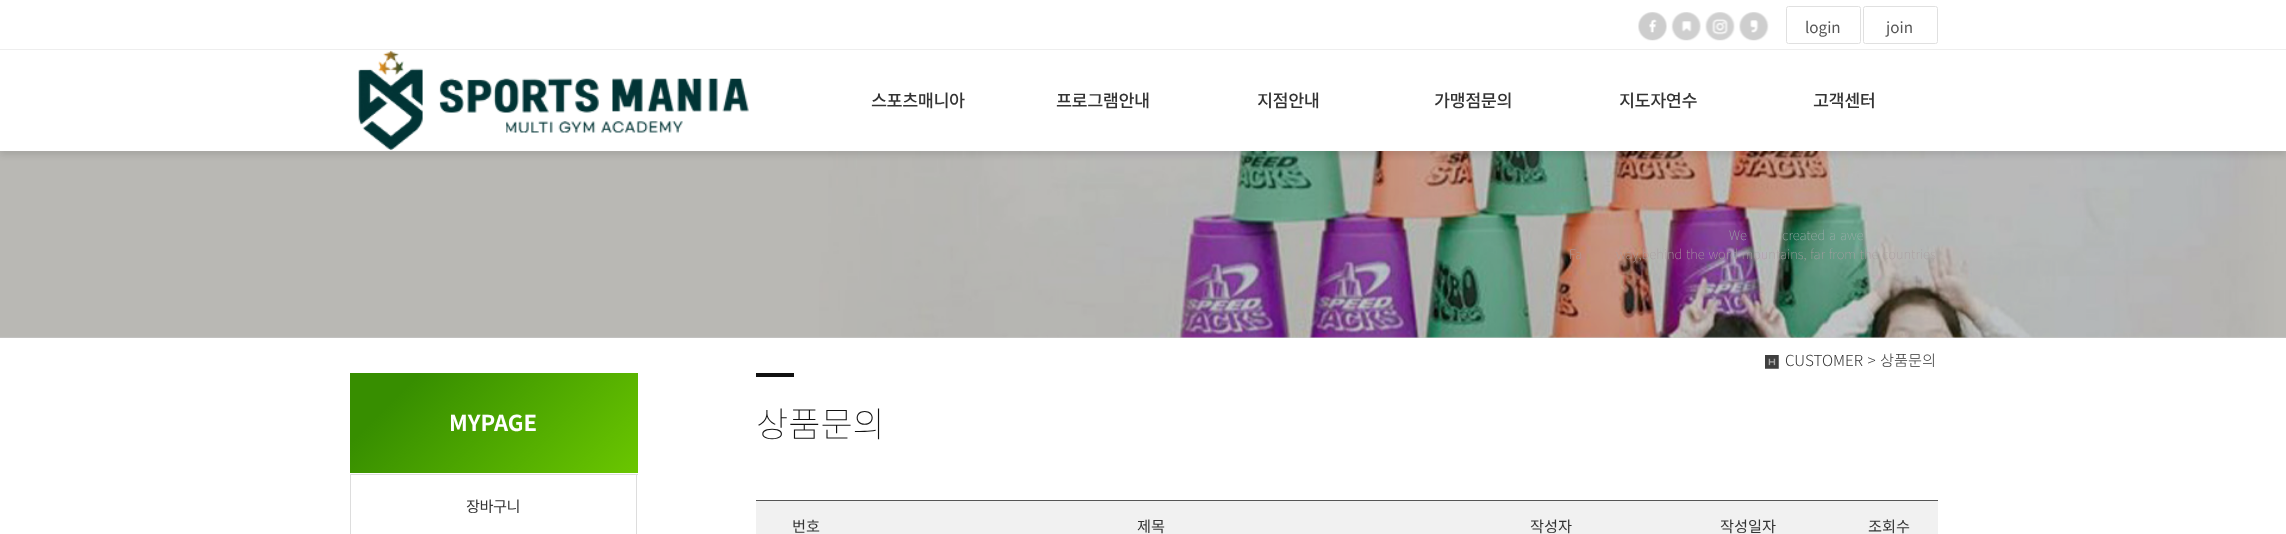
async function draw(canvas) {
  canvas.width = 2286;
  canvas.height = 534;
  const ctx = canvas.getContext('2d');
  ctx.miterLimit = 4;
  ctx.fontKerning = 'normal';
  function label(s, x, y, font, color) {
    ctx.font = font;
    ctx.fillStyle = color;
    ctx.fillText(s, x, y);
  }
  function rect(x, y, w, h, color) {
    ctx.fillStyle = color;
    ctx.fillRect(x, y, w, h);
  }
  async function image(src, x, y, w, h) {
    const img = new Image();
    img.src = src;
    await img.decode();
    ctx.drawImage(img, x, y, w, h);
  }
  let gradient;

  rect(0, 0, 2286, 534, '#fff');
  rect(0, 336, 2286, 2, '#ccc');
  await image('assets/img6.png', 0, 151, 2286, 187);
  ctx.fillStyle = '#0000001a';
  ctx.filter = 'blur(3px)';
  ctx.beginPath();
  ctx.rect(0, 4, 2286, 151);
  ctx.fill();
  ctx.filter = 'none';
  rect(0, 0, 2286, 151, '#fff');
  await image('assets/img1.png', 1638, 12, 29, 29);
  await image('assets/img2.png', 1671, 12, 30, 29);
  await image('assets/img3.png', 1705, 12, 30, 29);
  await image('assets/img4.png', 1739, 12, 30, 29);
  ctx.beginPath();
  ctx.roundRect(1786.5, 6.5, 74, 37, 2);
  ctx.strokeStyle = '#e0e0e0';
  ctx.stroke();
  label('login', 1805, 33, '15.25px Noto Sans KR', '#555');
  ctx.beginPath();
  ctx.roundRect(1863.5, 6.5, 74, 37, 2);
  ctx.stroke();
  label('join', 1886, 33, '15.25px Noto Sans KR', '#555');
  rect(0, 49, 2286, 1, '#eee');
  await image('assets/img5.png', 358, 50, 391, 100);
  ctx.letterSpacing = '-0.5px';
  label('스포츠매니아', 871, 107, '500 17.5px Noto Sans KR', '#333');
  label('프로그램안내', 1056, 107, '500 17.5px Noto Sans KR', '#333');
  label('지점안내', 1257, 107, '500 17.5px Noto Sans KR', '#333');
  label('가맹점문의', 1434, 107, '500 17.5px Noto Sans KR', '#333');
  label('지도자연수', 1619, 107, '500 17.5px Noto Sans KR', '#333');
  label('고객센터', 1813, 107, '500 17.5px Noto Sans KR', '#333');
  ctx.letterSpacing = '0px';
  ctx.wordSpacing = '1px';
  label('We', 1729, 240, '100 13.1px Noto Sans KR', '#9fadab');
  label('created a awe', 1782, 240, '100 13.1px Noto Sans KR', '#9fadab');
  ctx.wordSpacing = '0.75px';
  label('Fa', 1569, 259, '100 13.1px Noto Sans KR', '#a99ea1');
  label('way,behind the word mountains, far from the countries', 1616, 259, '100 13.1px Noto Sans KR', '#a99ea1');
  await image('assets/img7.png', 1765, 355, 14, 14);
  ctx.wordSpacing = '1px';
  label('CUSTOMER > 상품문의', 1785, 366, '300 15.25px Noto Sans KR', '#333');
  gradient = ctx.createLinearGradient(397, 326, 591, 519);
  gradient.addColorStop(0.18, '#378e00');
  gradient.addColorStop(1, '#6ac600');
  ctx.fillStyle = gradient;
  ctx.fillRect(350, 373, 288, 100);
  ctx.wordSpacing = '0px';
  label('MYPAGE', 449, 431, 'bold 22px Noto Sans KR', '#fff');
  rect(350, 474, 288, 1, '#ddd');
  rect(636, 475, 1, 59, '#ddd');
  rect(350, 475, 1, 59, '#ddd');
  ctx.letterSpacing = '-0.5px';
  label('장바구니', 466, 512, '15.25px Noto Sans KR', '#333');
  rect(756, 373, 38, 4, '#111');
  ctx.letterSpacing = '0px';
  label('상품문의', 756, 437, '100 35px Noto Sans KR', '#111');
  rect(756, 500, 1182, 1, '#555');
  rect(756, 501, 1182, 33, '#f1f1f1');
  label('번호', 792, 532, '15.25px Noto Sans KR', '#333');
  label('제목', 1137, 532, '15.25px Noto Sans KR', '#333');
  label('작성자', 1530, 532, '15.25px Noto Sans KR', '#333');
  label('작성일자', 1720, 532, '15.25px Noto Sans KR', '#333');
  label('조회수', 1868, 532, '15.25px Noto Sans KR', '#333');
}

draw(document.querySelector('canvas'));
